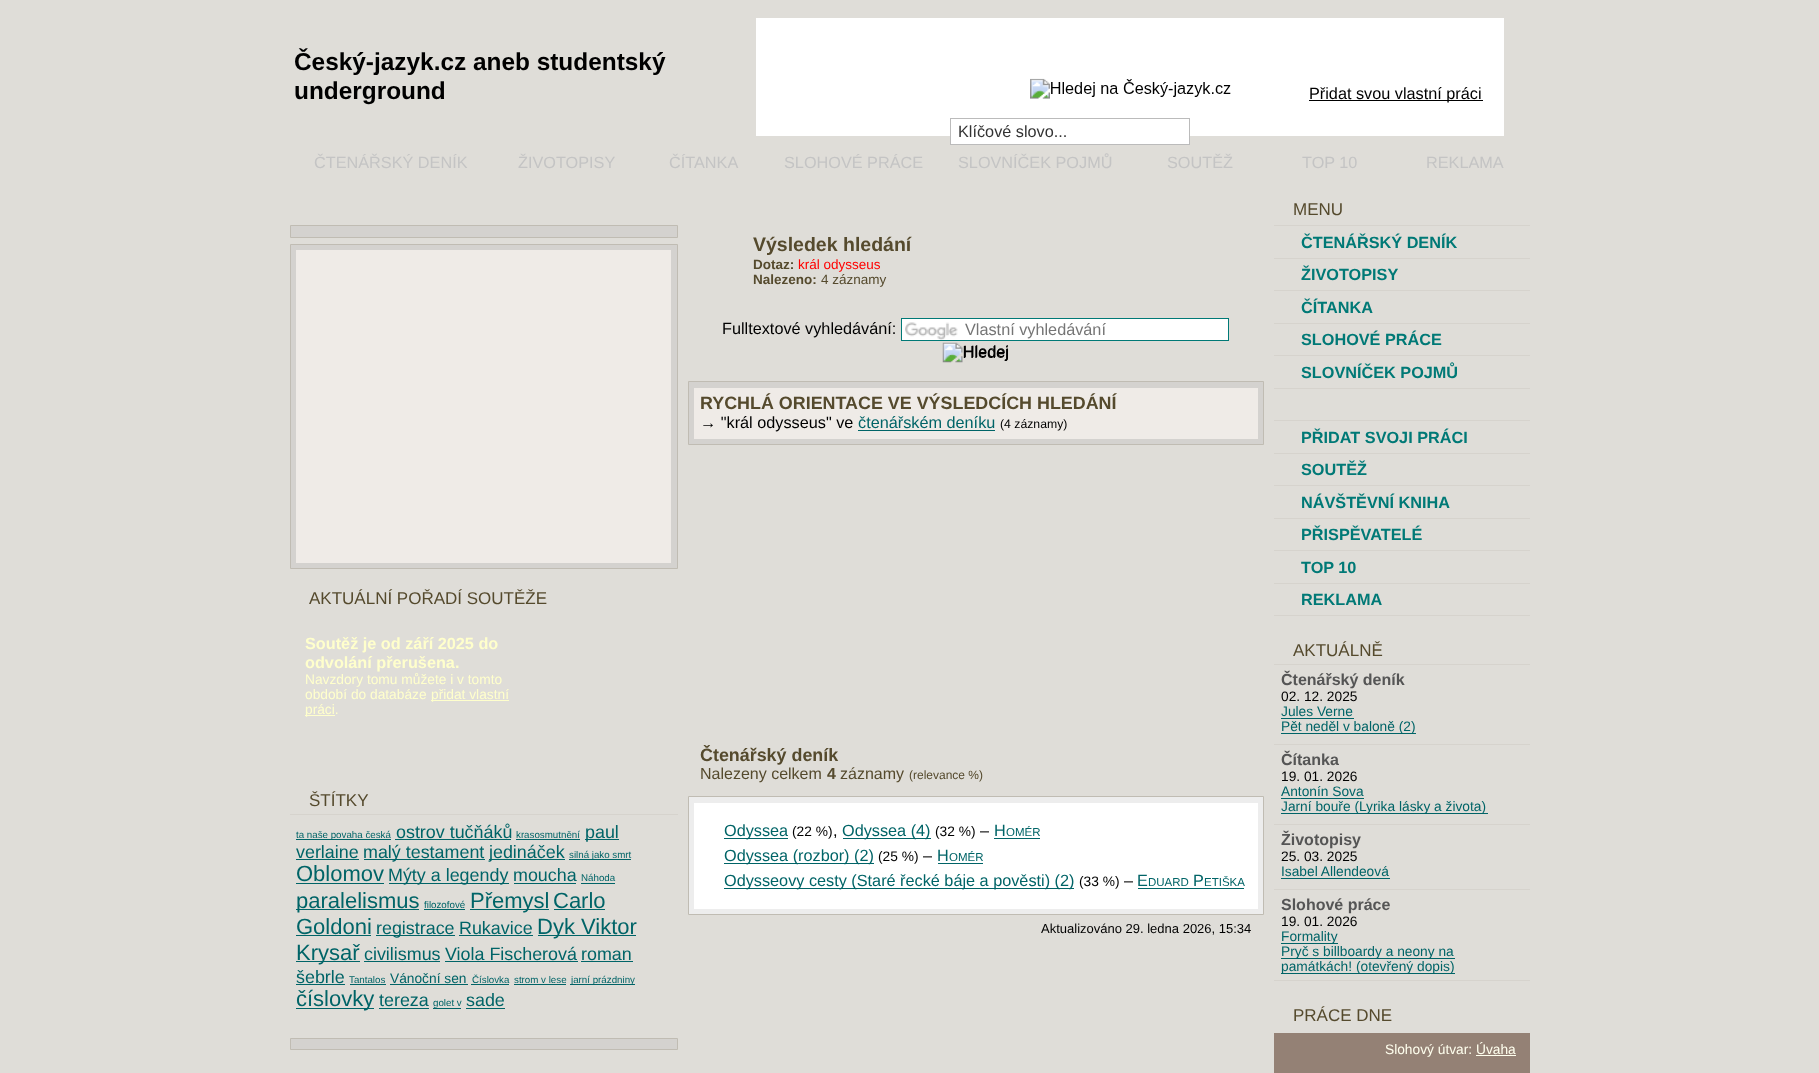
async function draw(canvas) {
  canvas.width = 1819;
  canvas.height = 1073;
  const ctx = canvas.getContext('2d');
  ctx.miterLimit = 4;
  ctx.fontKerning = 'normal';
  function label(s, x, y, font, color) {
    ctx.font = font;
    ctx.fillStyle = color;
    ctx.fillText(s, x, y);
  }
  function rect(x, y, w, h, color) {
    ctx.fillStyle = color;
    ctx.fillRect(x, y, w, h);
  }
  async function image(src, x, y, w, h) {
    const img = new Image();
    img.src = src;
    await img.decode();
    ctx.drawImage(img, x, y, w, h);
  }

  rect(0, 0, 1819, 1073, '#dfddd8');
  label('Český-jazyk.cz aneb studentský', 294, 70, 'bold 24.4px Liberation Sans', '#000');
  label('underground', 294, 99, 'bold 24.4px Liberation Sans', '#000');
  rect(756, 18, 748, 118, '#fff');
  rect(1309, 100, 174, 1, '#000');
  label('Přidat svou vlastní práci', 1309, 99, '16.25px Liberation Sans', '#000');
  await image('assets/img1.png', 1030, 78, 201, 21);
  rect(951, 136, 238, 8, '#fff');
  ctx.strokeStyle = '#bbb';
  ctx.strokeRect(950.5, 118.5, 239, 26);
  label('Klíčové slovo...', 958, 137, '16.25px Liberation Sans', '#333');
  label('ČTENÁŘSKÝ DENÍK', 314, 168, '16.25px Liberation Sans', '#c4c4c4');
  label('ŽIVOTOPISY', 518, 168, '16.25px Liberation Sans', '#c4c4c4');
  label('ČÍTANKA', 669, 168, '16.25px Liberation Sans', '#c4c4c4');
  label('SLOHOVÉ PRÁCE', 784, 168, '16.25px Liberation Sans', '#c4c4c4');
  label('SLOVNÍČEK POJMŮ', 958, 168, '16.25px Liberation Sans', '#c4c4c4');
  label('SOUTĚŽ', 1167, 168, '16.25px Liberation Sans', '#c4c4c4');
  label('TOP 10', 1302, 168, '16.25px Liberation Sans', '#c4c4c4');
  label('REKLAMA', 1426, 168, '16.25px Liberation Sans', '#c4c4c4');
  label('MENU', 1293, 215, '17px Liberation Sans', '#554a2d');
  ctx.fillStyle = '#d4d2cf';
  ctx.beginPath();
  ctx.rect(290.5, 225.5, 387, 12);
  ctx.fill();
  ctx.strokeStyle = '#c0bcb3';
  ctx.stroke();
  ctx.beginPath();
  ctx.rect(290.5, 244.5, 387, 324);
  ctx.fill();
  ctx.stroke();
  rect(296, 250, 375, 313, '#efebe7');
  label('AKTUÁLNÍ POŘADÍ SOUTĚŽE', 309, 604, '17px Liberation Sans', '#554a2d');
  label('Soutěž je od září 2025 do', 305, 649, 'bold 16.25px Liberation Sans', '#ffc');
  label('odvolání přerušena.', 305, 668, 'bold 16.25px Liberation Sans', '#ffc');
  label('Navzdory tomu můžete i v tomto', 305, 684, '13.75px Liberation Sans', '#ffc');
  label('období do databáze', 305, 699, '13.75px Liberation Sans', '#ffc');
  rect(431, 700, 78, 1, '#ffc');
  label('přidat vlastní', 431, 699, '13.75px Liberation Sans', '#ffc');
  rect(305, 715, 30, 1, '#ffc');
  label('práci.', 305, 714, '13.75px Liberation Sans', '#ffc');
  label('ŠTÍTKY', 309, 806, '17px Liberation Sans', '#554a2d');
  rect(290, 814, 388, 1, '#d6d3cd');
  rect(296, 839, 95, 1, '#006467');
  label('ta naše povaha česká', 296, 838, '9.75px Liberation Sans', '#006467');
  label('ostrov tučňáků', 396, 838, '17.9px Liberation Sans', '#006467');
  rect(395, 839, 116, 1, '#006467');
  label('krasosmutnění', 516, 838, '9.75px Liberation Sans', '#006467');
  rect(516, 839, 64, 1, '#006467');
  rect(585, 839, 34, 1, '#006467');
  label('paul', 585, 838, '17.9px Liberation Sans', '#006467');
  label('verlaine', 296, 858, '17.9px Liberation Sans', '#006467');
  rect(296, 859, 63, 1, '#006467');
  rect(364, 859, 121, 1, '#006467');
  label('malý testament', 363, 858, '17.9px Liberation Sans', '#006467');
  rect(489, 859, 76, 1, '#006467');
  label('jedináček', 489, 858, '17.9px Liberation Sans', '#006467');
  rect(569, 859, 62, 1, '#006467');
  label('silná jako smrt', 569, 858, '9.75px Liberation Sans', '#006467');
  label('Oblomov', 296, 881, '22px Liberation Sans', '#006467');
  rect(296, 883, 88, 1, '#006467');
  rect(389, 883, 120, 1, '#006467');
  label('Mýty a legendy', 388, 881, '17.9px Liberation Sans', '#006467');
  label('moucha', 513, 881, '17.9px Liberation Sans', '#006467');
  rect(514, 883, 62, 1, '#006467');
  label('Náhoda', 581, 881, '9.75px Liberation Sans', '#006467');
  rect(581, 883, 34, 1, '#006467');
  rect(296, 909, 123, 1, '#006467');
  label('paralelismus', 296, 908, '22px Liberation Sans', '#006467');
  label('filozofové', 424, 908, '9.75px Liberation Sans', '#006467');
  rect(424, 909, 41, 1, '#006467');
  rect(470, 909, 79, 1, '#006467');
  label('Přemysl', 470, 908, '22px Liberation Sans', '#006467');
  label('Carlo', 553, 908, '22px Liberation Sans', '#006467');
  rect(554, 909, 51, 1, '#006467');
  label('Goldoni', 296, 934, '22px Liberation Sans', '#006467');
  rect(296, 935, 75, 1, '#006467');
  rect(376, 935, 79, 1, '#006467');
  label('registrace', 376, 934, '17.9px Liberation Sans', '#006467');
  label('Rukavice', 459, 934, '17.9px Liberation Sans', '#006467');
  rect(459, 935, 74, 1, '#006467');
  rect(538, 935, 98, 1, '#006467');
  label('Dyk Viktor', 537, 934, '22px Liberation Sans', '#006467');
  rect(296, 961, 64, 1, '#006467');
  label('Krysař', 296, 960, '22px Liberation Sans', '#006467');
  label('civilismus', 364, 960, '17.9px Liberation Sans', '#006467');
  rect(364, 961, 76, 1, '#006467');
  label('Viola Fischerová', 445, 960, '17.9px Liberation Sans', '#006467');
  rect(445, 961, 133, 1, '#006467');
  label('roman', 581, 960, '17.9px Liberation Sans', '#006467');
  rect(581, 961, 52, 1, '#006467');
  label('šebrle', 296, 983, '17.9px Liberation Sans', '#006467');
  rect(296, 984, 49, 1, '#006467');
  label('Tantalos', 349, 983, '9.75px Liberation Sans', '#006467');
  rect(350, 984, 36, 1, '#006467');
  label('Vánoční sen', 390, 983, '13.75px Liberation Sans', '#006467');
  rect(390, 984, 78, 1, '#006467');
  label('Číslovka', 472, 983, '9.75px Liberation Sans', '#006467');
  rect(471, 984, 38, 1, '#006467');
  label('strom v lese', 514, 983, '9.75px Liberation Sans', '#006467');
  rect(514, 984, 52, 1, '#006467');
  rect(570, 984, 65, 1, '#006467');
  label('jarní prázdniny', 571, 983, '9.75px Liberation Sans', '#006467');
  rect(296, 1008, 78, 1, '#006467');
  label('číslovky', 296, 1006, '22px Liberation Sans', '#006467');
  label('tereza', 379, 1006, '17.9px Liberation Sans', '#006467');
  rect(379, 1008, 50, 1, '#006467');
  label('golet v', 433, 1006, '9.75px Liberation Sans', '#006467');
  rect(433, 1008, 28, 1, '#006467');
  label('sade', 466, 1006, '17.9px Liberation Sans', '#006467');
  rect(466, 1008, 39, 1, '#006467');
  ctx.fillStyle = '#d4d2cf';
  ctx.beginPath();
  ctx.rect(290.5, 1038.5, 387, 11);
  ctx.fill();
  ctx.stroke();
  label('Výsledek hledání', 753, 251, 'bold 19.5px Liberation Sans', '#554a2d');
  label('Dotaz:', 753, 269, 'bold 13.5px Liberation Sans', '#554a2d');
  label('král odysseus', 798, 269, '13.5px Liberation Sans', '#f00');
  label('Nalezeno:', 753, 284, 'bold 13.5px Liberation Sans', '#554a2d');
  label('4 záznamy', 821, 284, '13.5px Liberation Sans', '#554a2d');
  label('Fulltextové vyhledávání:', 722, 334, '16.25px Liberation Sans', '#000');
  rect(902, 319, 326, 21, '#fff');
  await image('assets/img2.png', 905, 322, 53, 18);
  ctx.strokeStyle = '#007976';
  ctx.strokeRect(901.5, 318.5, 327, 22);
  label('Vlastní vyhledávání', 965, 335, '16.25px Liberation Sans', '#757575');
  await image('assets/img3.png', 942, 342, 66, 21);
  label('Hledej', 963, 357, '16.25px Liberation Sans', '#000');
  ctx.fillStyle = '#d4d2cf';
  ctx.beginPath();
  ctx.rect(688.5, 381.5, 575, 63);
  ctx.fill();
  ctx.strokeStyle = '#c0bcb3';
  ctx.stroke();
  rect(694, 388, 564, 51, '#efebe7');
  label('RYCHLÁ ORIENTACE VE VÝSLEDCÍCH HLEDÁNÍ', 700, 409, 'bold 17.9px Liberation Sans', '#554a2d');
  label('→ "král odysseus" ve', 700, 428, '16.25px Liberation Sans', '#000');
  label('čtenářském deníku', 858, 428, '16.25px Liberation Sans', '#006467');
  rect(858, 430, 137, 1, '#006467');
  label('(4 záznamy)', 1000, 428, '12.25px Liberation Sans', '#000');
  label('Čtenářský deník', 700, 761, 'bold 17.9px Liberation Sans', '#554a2d');
  label('Nalezeny celkem', 700, 779, '16px Liberation Sans', '#554a2d');
  label('4', 827, 779, 'bold 16px Liberation Sans', '#554a2d');
  label('záznamy', 840, 779, '16px Liberation Sans', '#554a2d');
  label('(relevance %)', 909, 779, '12px Liberation Sans', '#554a2d');
  ctx.fillStyle = '#ededed';
  ctx.beginPath();
  ctx.rect(688.5, 796.5, 575, 118);
  ctx.fill();
  ctx.stroke();
  rect(694, 803, 564, 106, '#fff');
  rect(724, 838, 64, 1, '#006467');
  label('Odyssea', 724, 836, '16.25px Liberation Sans', '#006467');
  label('(22 %)', 792, 836, '13.75px Liberation Sans', '#000');
  rect(843, 838, 88, 1, '#006467');
  label('Odyssea (4)', 842, 836, '16.25px Liberation Sans', '#006467');
  label('(32 %)', 935, 836, '13.75px Liberation Sans', '#000');
  label('–', 980, 836, '16.25px Liberation Sans', '#000');
  label('H', 994, 836, '16.25px Liberation Sans', '#006467');
  label('OMÉR', 1006, 836, '11.5px Liberation Sans', '#006467');
  rect(994, 838, 46, 1, '#006467');
  label(',', 833, 836, '16.25px Liberation Sans', '#000');
  rect(724, 863, 150, 1, '#006467');
  label('Odyssea (rozbor) (2)', 724, 861, '16.25px Liberation Sans', '#006467');
  label('(25 %)', 878, 861, '13.75px Liberation Sans', '#000');
  label('–', 923, 861, '16.25px Liberation Sans', '#000');
  label('H', 937, 861, '16.25px Liberation Sans', '#006467');
  label('OMÉR', 949, 861, '11.5px Liberation Sans', '#006467');
  rect(938, 863, 45, 1, '#006467');
  rect(724, 888, 350, 1, '#006467');
  label('Odysseovy cesty (Staré řecké báje a pověsti) (2)', 724, 886, '16.25px Liberation Sans', '#006467');
  label('(33 %)', 1079, 886, '13.75px Liberation Sans', '#000');
  label('–', 1124, 886, '16.25px Liberation Sans', '#000');
  label('E', 1137, 886, '16.25px Liberation Sans', '#006467');
  label('DUARD', 1148, 886, '11.5px Liberation Sans', '#006467');
  rect(1138, 888, 106, 1, '#006467');
  label('P', 1193, 886, '16.25px Liberation Sans', '#006467');
  label('ETIŠKA', 1204, 886, '11.5px Liberation Sans', '#006467');
  label('Aktualizováno 29. ledna 2026, 15:34', 1041, 933, '13px Liberation Sans', '#000');
  rect(1274, 225, 256, 1, '#d6d3cd');
  label('ČTENÁŘSKÝ DENÍK', 1301, 248, 'bold 16.25px Liberation Sans', '#007976');
  rect(1274, 258, 256, 1, '#d6d3cd');
  label('ŽIVOTOPISY', 1301, 280, 'bold 16.25px Liberation Sans', '#007976');
  rect(1274, 290, 256, 1, '#d6d3cd');
  label('ČÍTANKA', 1301, 313, 'bold 16.25px Liberation Sans', '#007976');
  rect(1274, 323, 256, 1, '#d6d3cd');
  label('SLOHOVÉ PRÁCE', 1301, 345, 'bold 16.25px Liberation Sans', '#007976');
  rect(1274, 355, 256, 1, '#d6d3cd');
  rect(1274, 388, 256, 1, '#d6d3cd');
  label('SLOVNÍČEK POJMŮ', 1301, 378, 'bold 16.25px Liberation Sans', '#007976');
  rect(1274, 420, 256, 1, '#d6d3cd');
  label('PŘIDAT SVOJI PRÁCI', 1301, 443, 'bold 16.25px Liberation Sans', '#007976');
  rect(1274, 453, 256, 1, '#d6d3cd');
  label('SOUTĚŽ', 1301, 475, 'bold 16.25px Liberation Sans', '#007976');
  rect(1274, 485, 256, 1, '#d6d3cd');
  label('NÁVŠTĚVNÍ KNIHA', 1301, 508, 'bold 16.25px Liberation Sans', '#007976');
  rect(1274, 518, 256, 1, '#d6d3cd');
  label('PŘISPĚVATELÉ', 1301, 540, 'bold 16.25px Liberation Sans', '#007976');
  rect(1274, 550, 256, 1, '#d6d3cd');
  label('TOP 10', 1301, 573, 'bold 16.25px Liberation Sans', '#007976');
  rect(1274, 583, 256, 1, '#d6d3cd');
  rect(1274, 615, 256, 1, '#d6d3cd');
  label('REKLAMA', 1301, 605, 'bold 16.25px Liberation Sans', '#007976');
  label('AKTUÁLNĚ', 1293, 656, '17px Liberation Sans', '#554a2d');
  rect(1274, 664, 256, 1, '#d6d3cd');
  label('Čtenářský deník', 1281, 685, 'bold 16px Liberation Sans', '#555');
  label('02. 12. 2025', 1281, 701, '13.75px Liberation Sans', '#000');
  label('Jules Verne', 1281, 716, '13.75px Liberation Sans', '#006467');
  rect(1281, 718, 73, 1, '#006467');
  rect(1281, 733, 135, 1, '#006467');
  label('Pět neděl v baloně (2)', 1281, 731, '13.75px Liberation Sans', '#006467');
  rect(1274, 744, 256, 1, '#d6d3cd');
  label('Čítanka', 1281, 765, 'bold 16px Liberation Sans', '#555');
  label('19. 01. 2026', 1281, 781, '13.75px Liberation Sans', '#000');
  label('Antonín Sova', 1281, 796, '13.75px Liberation Sans', '#006467');
  rect(1281, 798, 83, 1, '#006467');
  rect(1281, 813, 207, 1, '#006467');
  label('Jarní bouře (Lyrika lásky a života)', 1281, 811, '13.75px Liberation Sans', '#006467');
  rect(1274, 824, 256, 1, '#d6d3cd');
  label('Životopisy', 1281, 845, 'bold 16px Liberation Sans', '#555');
  label('25. 03. 2025', 1281, 861, '13.75px Liberation Sans', '#000');
  label('Isabel Allendeová', 1281, 876, '13.75px Liberation Sans', '#006467');
  rect(1281, 878, 109, 1, '#006467');
  rect(1274, 889, 256, 1, '#d6d3cd');
  rect(1274, 980, 256, 1, '#d6d3cd');
  label('Slohové práce', 1281, 910, 'bold 16px Liberation Sans', '#555');
  label('19. 01. 2026', 1281, 926, '13.75px Liberation Sans', '#000');
  rect(1281, 943, 57, 1, '#006467');
  label('Formality', 1281, 941, '13.75px Liberation Sans', '#006467');
  rect(1281, 958, 174, 1, '#006467');
  label('Pryč s billboardy a neony na', 1281, 956, '13.75px Liberation Sans', '#006467');
  rect(1281, 973, 174, 1, '#006467');
  label('památkách! (otevřený dopis)', 1281, 971, '13.75px Liberation Sans', '#006467');
  label('PRÁCE DNE', 1293, 1021, '17px Liberation Sans', '#554a2d');
  rect(1274, 1033, 256, 40, '#948175');
  label('Slohový útvar: Úvaha', 1385, 1054, '13.75px Liberation Sans', '#ffe');
  rect(1476, 1055, 40, 1, '#ffe');
}

draw(document.querySelector('canvas'));
